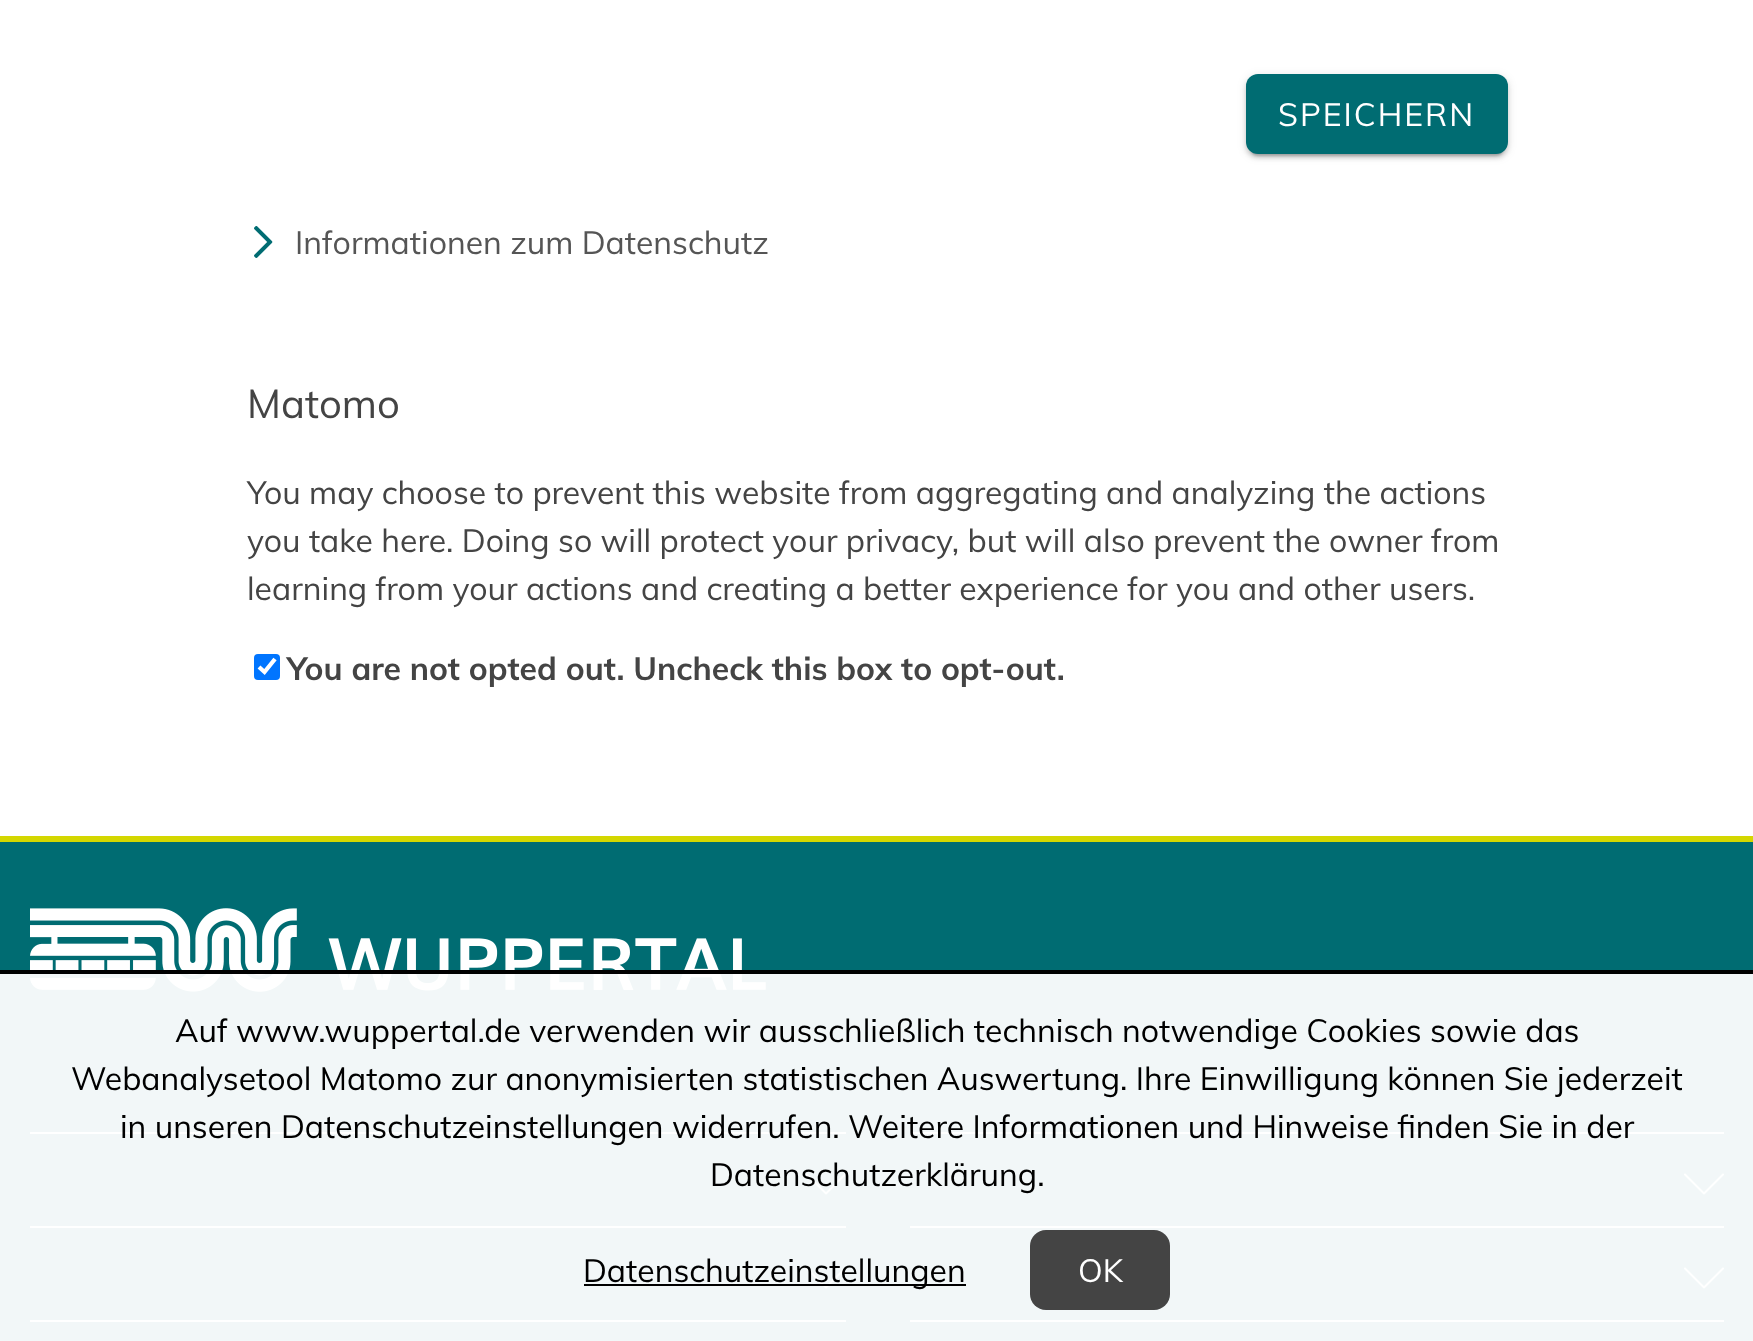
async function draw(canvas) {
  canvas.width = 1753;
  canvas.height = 1341;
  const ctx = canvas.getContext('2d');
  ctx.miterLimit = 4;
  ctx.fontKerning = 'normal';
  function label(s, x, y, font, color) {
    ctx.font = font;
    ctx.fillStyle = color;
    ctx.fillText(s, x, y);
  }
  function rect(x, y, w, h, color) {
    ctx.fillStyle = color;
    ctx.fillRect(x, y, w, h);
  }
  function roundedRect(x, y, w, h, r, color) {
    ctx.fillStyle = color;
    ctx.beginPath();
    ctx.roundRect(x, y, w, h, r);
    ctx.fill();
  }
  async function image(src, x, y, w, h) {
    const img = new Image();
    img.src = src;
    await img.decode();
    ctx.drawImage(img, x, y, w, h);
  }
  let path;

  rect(0, 0, 1753, 1341, '#fff');
  ctx.fillStyle = '#00000033';
  ctx.filter = 'blur(1px)';
  ctx.beginPath();
  ctx.roundRect(1250, 84, 254, 72, 8);
  ctx.fill();
  ctx.filter = 'none';
  ctx.fillStyle = '#0000001f';
  ctx.filter = 'blur(5px)';
  ctx.beginPath();
  ctx.roundRect(1246, 76, 262, 80, 12);
  ctx.fill();
  ctx.filter = 'none';
  ctx.fillStyle = '#00000024';
  ctx.filter = 'blur(2px)';
  ctx.beginPath();
  ctx.roundRect(1246, 78, 262, 80, 12);
  ctx.fill();
  ctx.filter = 'none';
  roundedRect(1246, 74, 262, 80, 12, '#006c72');
  ctx.letterSpacing = '2px';
  label('SPEICHERN', 1278, 126, '32px Muli', '#fff');
  await image('assets/img1.png', 254, 226, 19, 32);
  ctx.letterSpacing = '0px';
  label('Informationen zum Datenschutz', 295, 254, '32px Muli', '#555');
  label('Matomo', 247, 418, '40px Muli', '#444');
  label('You may choose to prevent this website from aggregating and analyzing the actions', 247, 504, '32px Muli', '#444');
  label('you take here. Doing so will protect your privacy, but will also prevent the owner from', 247, 552, '32px Muli', '#444');
  label('learning from your actions and creating a better experience for you and other users.', 247, 600, '32px Muli', '#444');
  roundedRect(254, 654, 26, 26, 4, '#0075ff');
  path = new Path2D('M259 667L264.5 672L275 659');
  ctx.strokeStyle = '#fff';
  ctx.lineWidth = 4.2;
  ctx.stroke(path);
  label('You are not opted out. Uncheck this box to opt-out.', 287, 680, 'bold 32px Muli', '#444');
  rect(0, 836, 1753, 6, '#d4d700');
  rect(0, 842, 1753, 499, '#006c72');
  await image('assets/img2.png', 30, 908, 736, 84);
  rect(30, 1132, 816, 2, '#fff');
  rect(30, 1226, 816, 2, '#fff');
  await image('assets/img3.png', 806, 1173, 40, 22);
  rect(30, 1320, 816, 2, '#fff');
  await image('assets/img3.png', 806, 1267, 40, 22);
  rect(910, 1132, 814, 2, '#fff');
  rect(910, 1226, 814, 2, '#fff');
  await image('assets/img3.png', 1684, 1173, 40, 22);
  rect(910, 1320, 814, 2, '#fff');
  await image('assets/img3.png', 1684, 1267, 40, 22);
  rect(0, 974, 1753, 367, '#fffffff2');
  rect(0, 970, 1753, 4, '#000');
  label('Auf www.wuppertal.de verwenden wir ausschließlich technisch notwendige Cookies sowie das', 175, 1042, '32px Muli', '#000');
  label('Webanalysetool Matomo zur anonymisierten statistischen Auswertung. Ihre Einwilligung können Sie jederzeit', 71, 1090, '32px Muli', '#000');
  label('in unseren Datenschutzeinstellungen widerrufen. Weitere Informationen und Hinweise finden Sie in der', 120, 1138, '32px Muli', '#000');
  label('Datenschutzerklärung.', 710, 1186, '32px Muli', '#000');
  rect(584, 1284, 382, 2, '#000');
  label('Datenschutzeinstellungen', 583, 1282, '32px Muli', '#000');
  roundedRect(1030, 1230, 140, 80, 16, '#444');
  label('OK', 1078, 1282, '32px Muli', '#fff');
}

draw(document.querySelector('canvas'));
